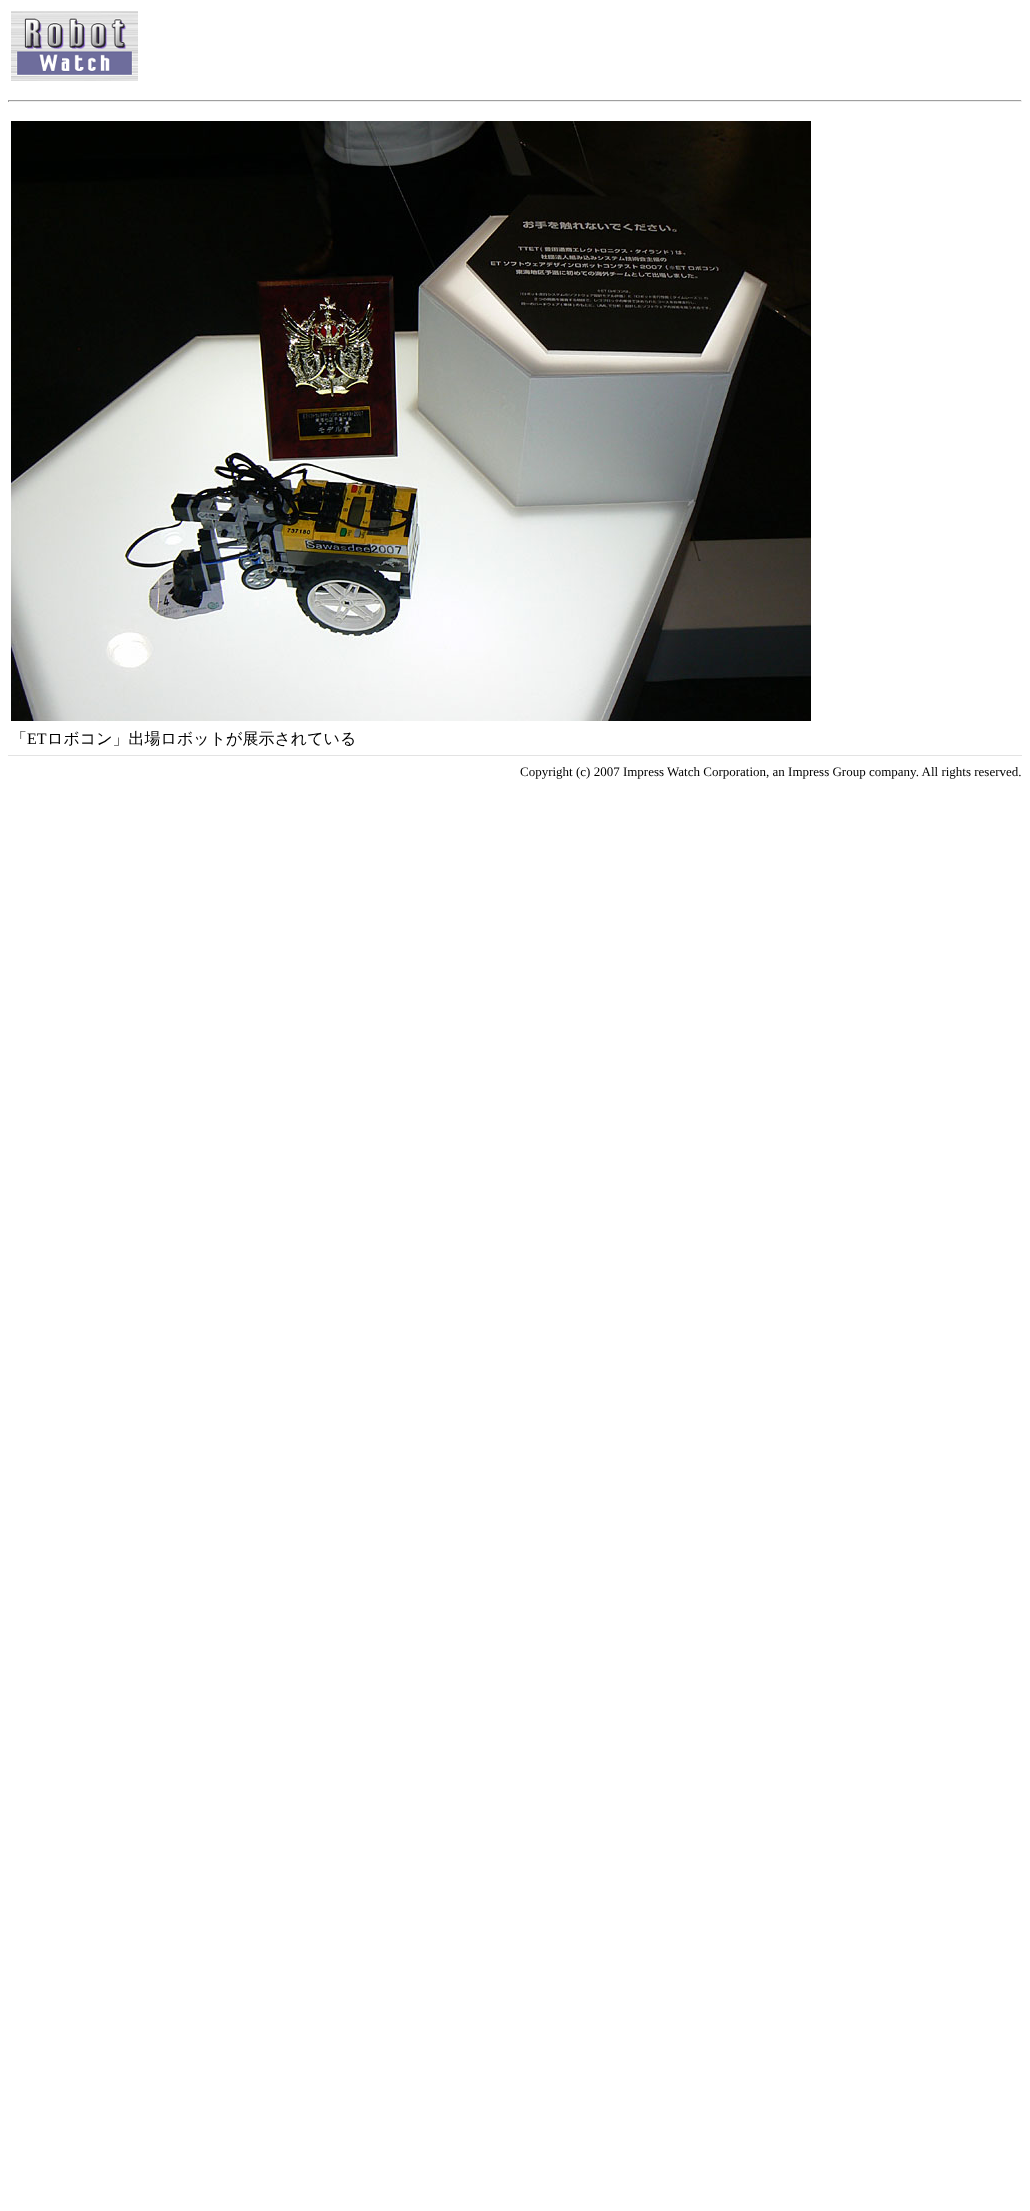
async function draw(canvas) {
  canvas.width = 1030;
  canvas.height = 2211;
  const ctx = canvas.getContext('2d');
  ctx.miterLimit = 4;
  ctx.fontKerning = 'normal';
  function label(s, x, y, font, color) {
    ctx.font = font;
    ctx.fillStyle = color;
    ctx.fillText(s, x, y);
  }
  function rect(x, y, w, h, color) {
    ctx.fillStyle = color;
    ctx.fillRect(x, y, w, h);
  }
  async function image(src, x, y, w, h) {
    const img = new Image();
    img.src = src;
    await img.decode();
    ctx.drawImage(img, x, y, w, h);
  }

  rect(0, 0, 1030, 2211, '#fff');
  await image('assets/img1.png', 11, 11, 127, 70);
  rect(8, 100, 1014, 1, '#9f9f9f');
  rect(1021, 100, 1, 2, '#eee');
  rect(8, 101, 1014, 1, '#eee');
  rect(8, 100, 1, 2, '#9f9f9f');
  await image('assets/img2.png', 11, 121, 800, 600);
  label('「', 11, 744, '500 16px WenQuanYi Zen Hei', '#000');
  label('ET', 27, 744, '16px Liberation Serif', '#000');
  label('ロボコン」出場ロボットが展示されている', 47, 744, '500 16px WenQuanYi Zen Hei', '#000');
  rect(8, 755, 1014, 1, '#e3e3e3');
  label('Copyright (c) 2007 Impress Watch Corporation, an Impress Group company. All rights reserved.', 520, 776, '13px Liberation Serif', '#000');
}

draw(document.querySelector('canvas'));
